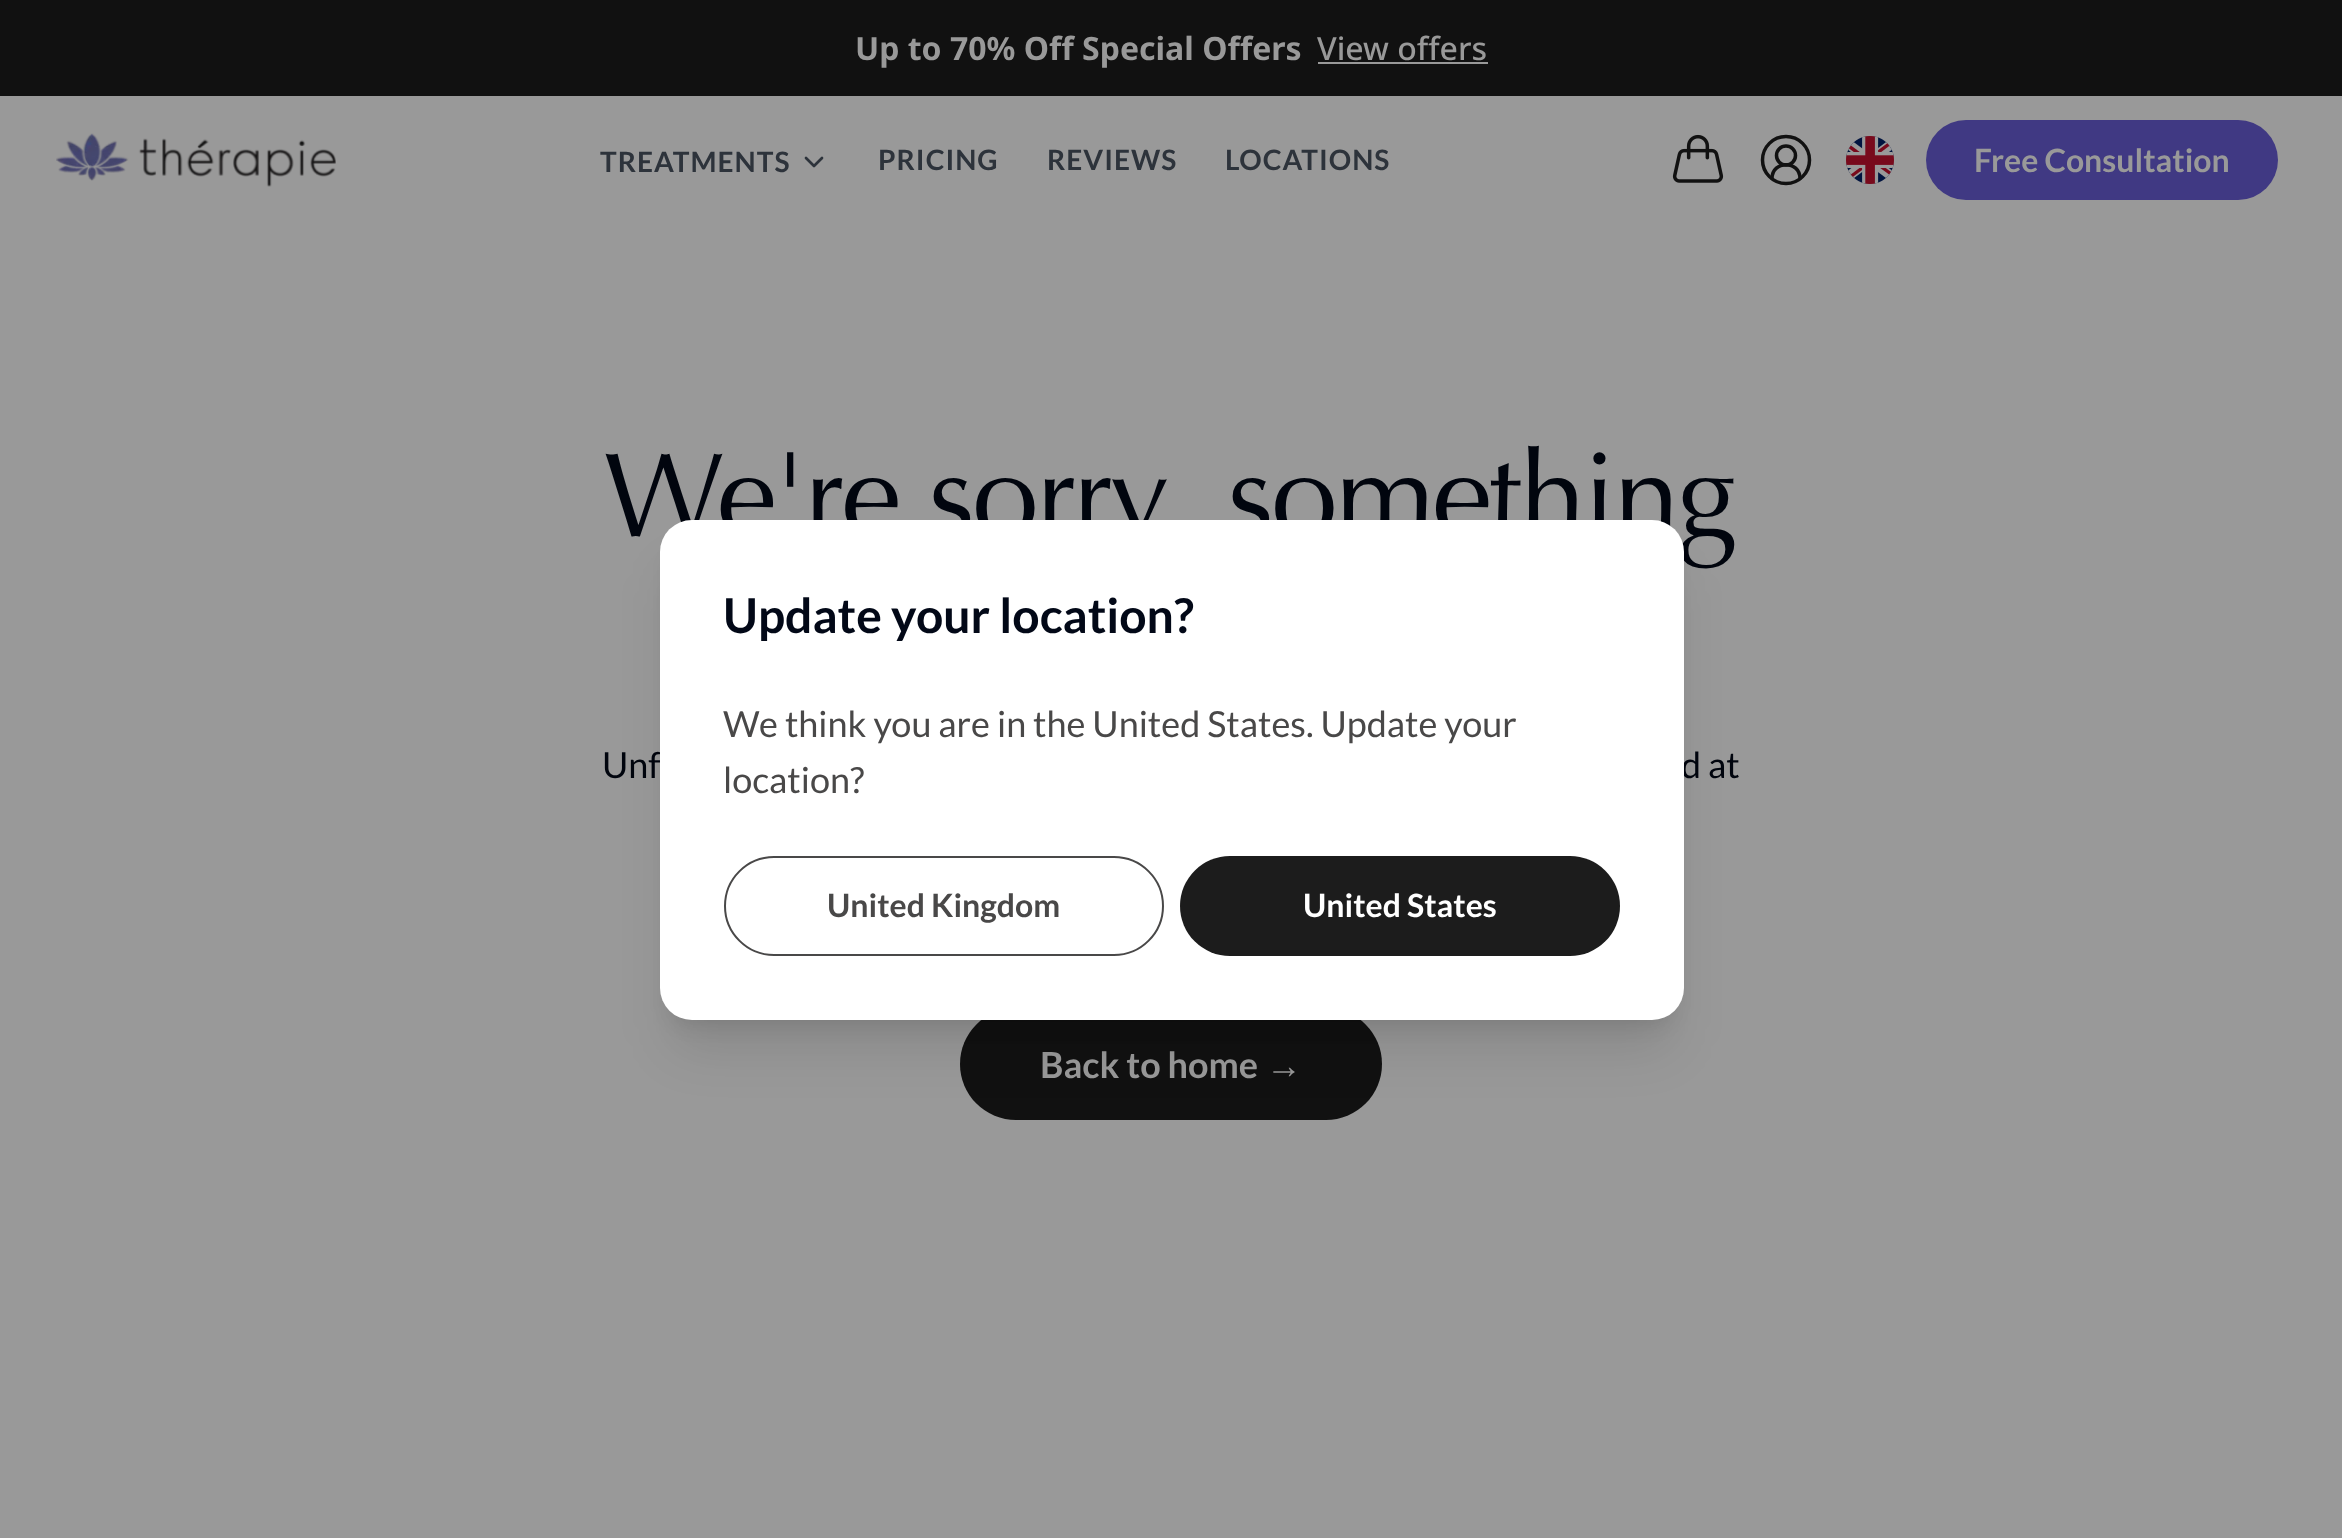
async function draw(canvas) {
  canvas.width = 2342;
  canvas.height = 1538;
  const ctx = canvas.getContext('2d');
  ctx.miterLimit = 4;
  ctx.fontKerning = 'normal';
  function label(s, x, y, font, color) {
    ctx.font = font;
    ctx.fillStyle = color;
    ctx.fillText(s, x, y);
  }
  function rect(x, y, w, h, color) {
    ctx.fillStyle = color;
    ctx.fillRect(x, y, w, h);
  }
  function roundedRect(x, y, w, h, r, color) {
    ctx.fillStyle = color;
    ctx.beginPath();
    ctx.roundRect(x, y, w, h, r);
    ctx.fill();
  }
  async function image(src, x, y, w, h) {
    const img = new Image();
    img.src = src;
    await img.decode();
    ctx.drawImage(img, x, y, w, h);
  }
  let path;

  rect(0, 0, 2342, 1538, '#999');
  rect(0, 0, 2342, 96, '#111');
  label('Up to 70% Off Special Offers', 855, 60, 'bold 32px Noto Sans', '#999');
  label('View offers', 1317, 60, '500 32px Noto Sans', '#999');
  rect(1318, 62, 170, 2, '#999');
  await image('assets/img1.png', 56, 133, 280, 54);
  ctx.letterSpacing = '1px';
  label('TREATMENTS', 600, 172, 'bold 28px Lato', '#2d333b');
  path = new Path2D('M806 158L814 166L822 158');
  ctx.strokeStyle = '#2d333b';
  ctx.lineWidth = 2.7;
  ctx.lineCap = 'round';
  ctx.lineJoin = 'round';
  ctx.stroke(path);
  label('PRICING', 878, 170, 'bold 28px Lato', '#2d333b');
  label('REVIEWS', 1047, 170, 'bold 28px Lato', '#2d333b');
  label('LOCATIONS', 1225, 170, 'bold 28px Lato', '#2d333b');
  await image('assets/img2.png', 1672, 134, 52, 49);
  path = new Path2D('M1800 178.5C1800 160 1772 160 1772 178.5');
  ctx.strokeStyle = '#111';
  ctx.lineWidth = 3.5;
  ctx.stroke(path);
  ctx.beginPath();
  ctx.arc(1786, 155.5, 9.5, 0, 2 * Math.PI);
  ctx.stroke();
  ctx.beginPath();
  ctx.arc(1786, 160, 23.5, 0, 2 * Math.PI);
  ctx.stroke();
  await image('assets/img3.png', 1846, 136, 48, 48);
  roundedRect(1926, 120, 352, 80, 40, '#403983');
  ctx.letterSpacing = '0px';
  label('Free Consultation', 1974, 172, 'bold 32px Lato', '#999');
  ctx.letterSpacing = '-3px';
  label('We\'re sorry, something', 604, 536, '120px Optima', '#01050e');
  ctx.letterSpacing = '0px';
  label('Unf', 602, 778, '36px Lato', '#01050e');
  label('d at', 1681, 778, '36px Lato', '#01050e');
  roundedRect(960, 1008, 422, 112, 56, '#111');
  label('Back to home', 1040, 1078, 'bold 36px Lato', '#999');
  label('→', 1266, 1078, 'bold 36px Liberation Sans', '#999');
  ctx.fillStyle = '#0000001a';
  ctx.filter = 'blur(10px)';
  ctx.beginPath();
  ctx.roundRect(672, 548, 1000, 476, 20);
  ctx.fill();
  ctx.filter = 'none';
  ctx.filter = 'blur(25px)';
  ctx.beginPath();
  ctx.roundRect(670, 570, 1004, 480, 22);
  ctx.fill();
  ctx.filter = 'none';
  roundedRect(660, 520, 1024, 500, 32, '#fff');
  label('Update your location?', 723, 633, 'bold 48px Lato', '#020817');
  label('We think you are in the United States. Update your', 723, 737, '36px Lato', '#494848');
  label('location?', 723, 793, '36px Lato', '#494848');
  ctx.beginPath();
  ctx.roundRect(725, 857, 438, 98, 49);
  ctx.strokeStyle = '#494848';
  ctx.lineWidth = 2;
  ctx.lineJoin = 'miter';
  ctx.stroke();
  label('United Kingdom', 827, 917, 'bold 32px Lato', '#494848');
  roundedRect(1180, 856, 440, 100, 50, '#1c1c1c');
  label('United States', 1303, 917, 'bold 32px Lato', '#fff');
}

draw(document.querySelector('canvas'));
